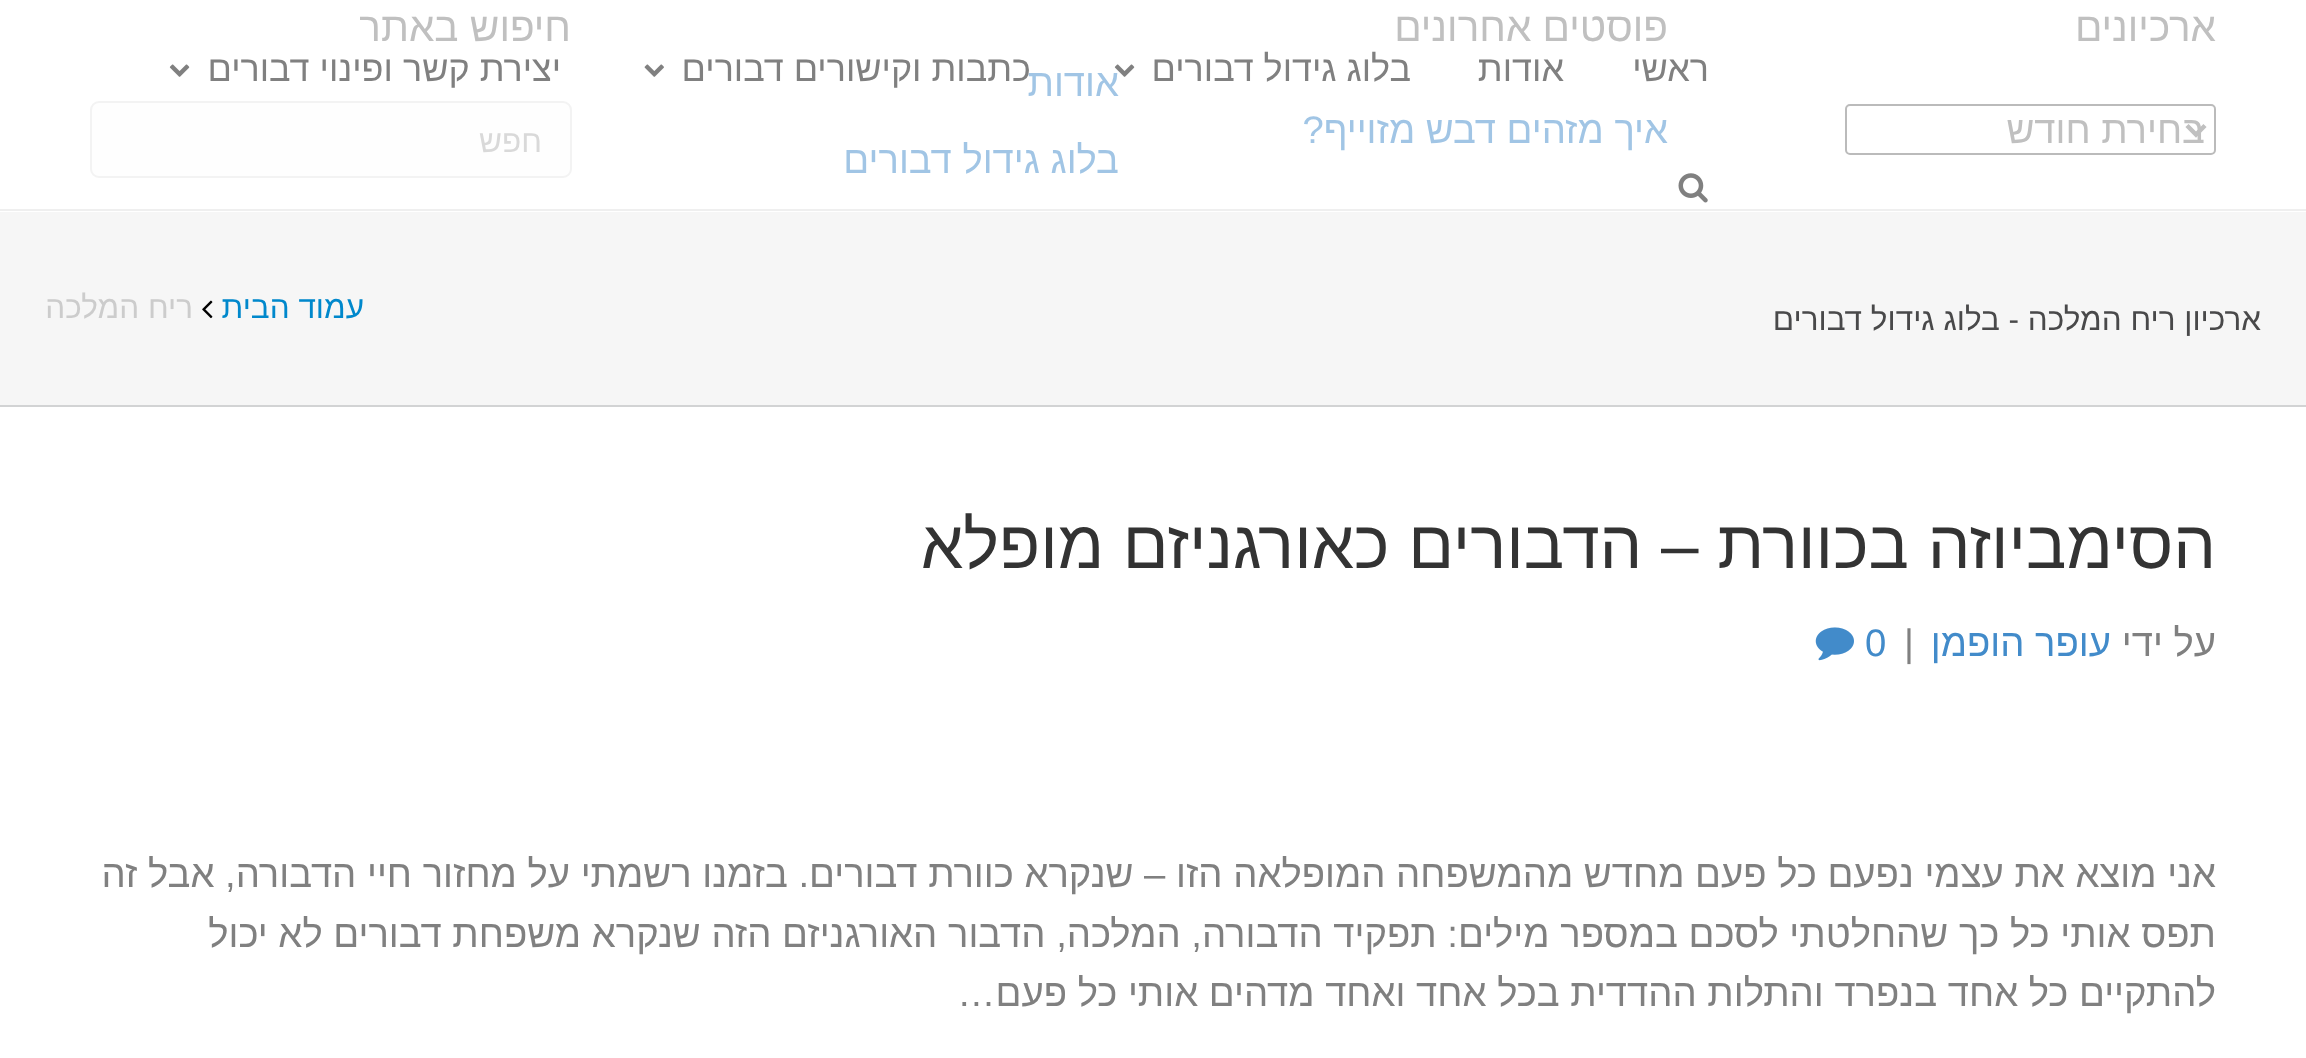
async function draw(canvas) {
  canvas.width = 2306;
  canvas.height = 1058;
  const ctx = canvas.getContext('2d');
  ctx.miterLimit = 4;
  ctx.fontKerning = 'normal';
  function label(s, x, y, font, color) {
    ctx.font = font;
    ctx.fillStyle = color;
    ctx.fillText(s, x, y);
  }
  function rect(x, y, w, h, color) {
    ctx.fillStyle = color;
    ctx.fillRect(x, y, w, h);
  }
  async function image(src, x, y, w, h) {
    const img = new Image();
    img.src = src;
    await img.decode();
    ctx.drawImage(img, x, y, w, h);
  }
  let path;

  rect(0, 0, 2306, 1058, '#fff');
  ctx.direction = 'rtl';
  label('ארכיונים', 2216, 41, '40.5px Liberation Sans', '#808080');
  ctx.beginPath();
  ctx.roundRect(1846, 105, 369, 49, 4);
  ctx.strokeStyle = '#767676';
  ctx.lineWidth = 2;
  ctx.stroke();
  path = new Path2D('M2187 125.5L2196 134.5L2205 125.5');
  ctx.strokeStyle = '#808080';
  ctx.lineWidth = 4.5;
  ctx.stroke(path);
  label('בחירת חודש', 2205, 143, '38.25px Liberation Sans', '#808080');
  label('פוסטים אחרונים', 1668, 41, '40.5px Liberation Sans', '#808080');
  label('איך מזהים דבש מזוייף?', 1668, 143, '38.25px Liberation Sans', '#428bca');
  label('אודות', 1119, 96, '38.25px Liberation Sans', '#428bca');
  label('בלוג גידול דבורים', 1119, 173, '38.25px Liberation Sans', '#428bca');
  label('חיפוש באתר', 571, 41, '40.5px Liberation Sans', '#808080');
  ctx.fillStyle = '#fcfcfc';
  ctx.beginPath();
  ctx.roundRect(91, 102, 480, 75, 8);
  ctx.fill();
  ctx.strokeStyle = '#e6e6e6';
  ctx.lineWidth = 2;
  ctx.stroke();
  label('חפש', 542, 152, '31.5px Liberation Sans', '#b2b2b2');
  rect(90, 16, 2126, 162, '#ffffff80');
  rect(0, 209, 2306, 2, '#80808021');
  label('ראשי', 1709, 81, '36px Liberation Sans', '#808080');
  label('אודות', 1564, 81, '36px Liberation Sans', '#808080');
  label('בלוג גידול דבורים', 1411, 81, '36px Liberation Sans', '#808080');
  await image('assets/img1.png', 1114, 64, 21, 13);
  label('כתבות וקישורים דבורים', 1031, 81, '36px Liberation Sans', '#808080');
  await image('assets/img2.png', 644, 64, 20, 13);
  label('יצירת קשר ופינוי דבורים', 561, 81, '36px Liberation Sans', '#808080');
  await image('assets/img3.png', 169, 64, 21, 13);
  await image('assets/img4.png', 1678, 173, 30, 30);
  rect(0, 212, 2306, 193, '#f6f6f6');
  rect(0, 405, 2306, 2, '#d2d3d4');
  label('ארכיון ריח המלכה - בלוג גידול דבורים', 2261, 330, '31.5px Liberation Sans', '#49494a');
  label('עמוד הבית', 364, 318, '31.5px Liberation Sans', '#08c');
  await image('assets/img5.png', 202, 300, 11, 19);
  label('ריח המלכה', 193, 318, '31.5px Liberation Sans', '#ccc');
  label('הסימביוזה בכוורת – הדבורים כאורגניזם מופלא', 2216, 568, '67.5px Liberation Sans', '#333');
  label('על ידי', 2216, 656, '38.25px Liberation Sans', '#808080');
  label('עופר הופמן', 2111, 656, '38.25px Liberation Sans', '#428bca');
  ctx.direction = 'ltr';
  label('|', 1904, 656, '38.25px Liberation Sans', '#808080');
  label('0', 1865, 656, '38.25px Liberation Sans', '#428bca');
  await image('assets/img6.png', 1815, 627, 39, 34);
  ctx.direction = 'rtl';
  label('אני מוצא את עצמי נפעם כל פעם מחדש מהמשפחה המופלאה הזו – שנקרא כוורת דבורים. בזמנו רשמתי על מחזור חיי הדבורה, אבל זה', 2216, 887, '38.25px Liberation Sans', '#808080');
  label('תפס אותי כל כך שהחלטתי לסכם במספר מילים: תפקיד הדבורה, המלכה, הדבור האורגניזם הזה שנקרא משפחת דבורים לא יכול', 2216, 947, '38.25px Liberation Sans', '#808080');
  label('להתקיים כל אחד בנפרד והתלות ההדדית בכל אחד ואחד מדהים אותי כל פעם…', 2216, 1006, '38.25px Liberation Sans', '#808080');
}

draw(document.querySelector('canvas'));
